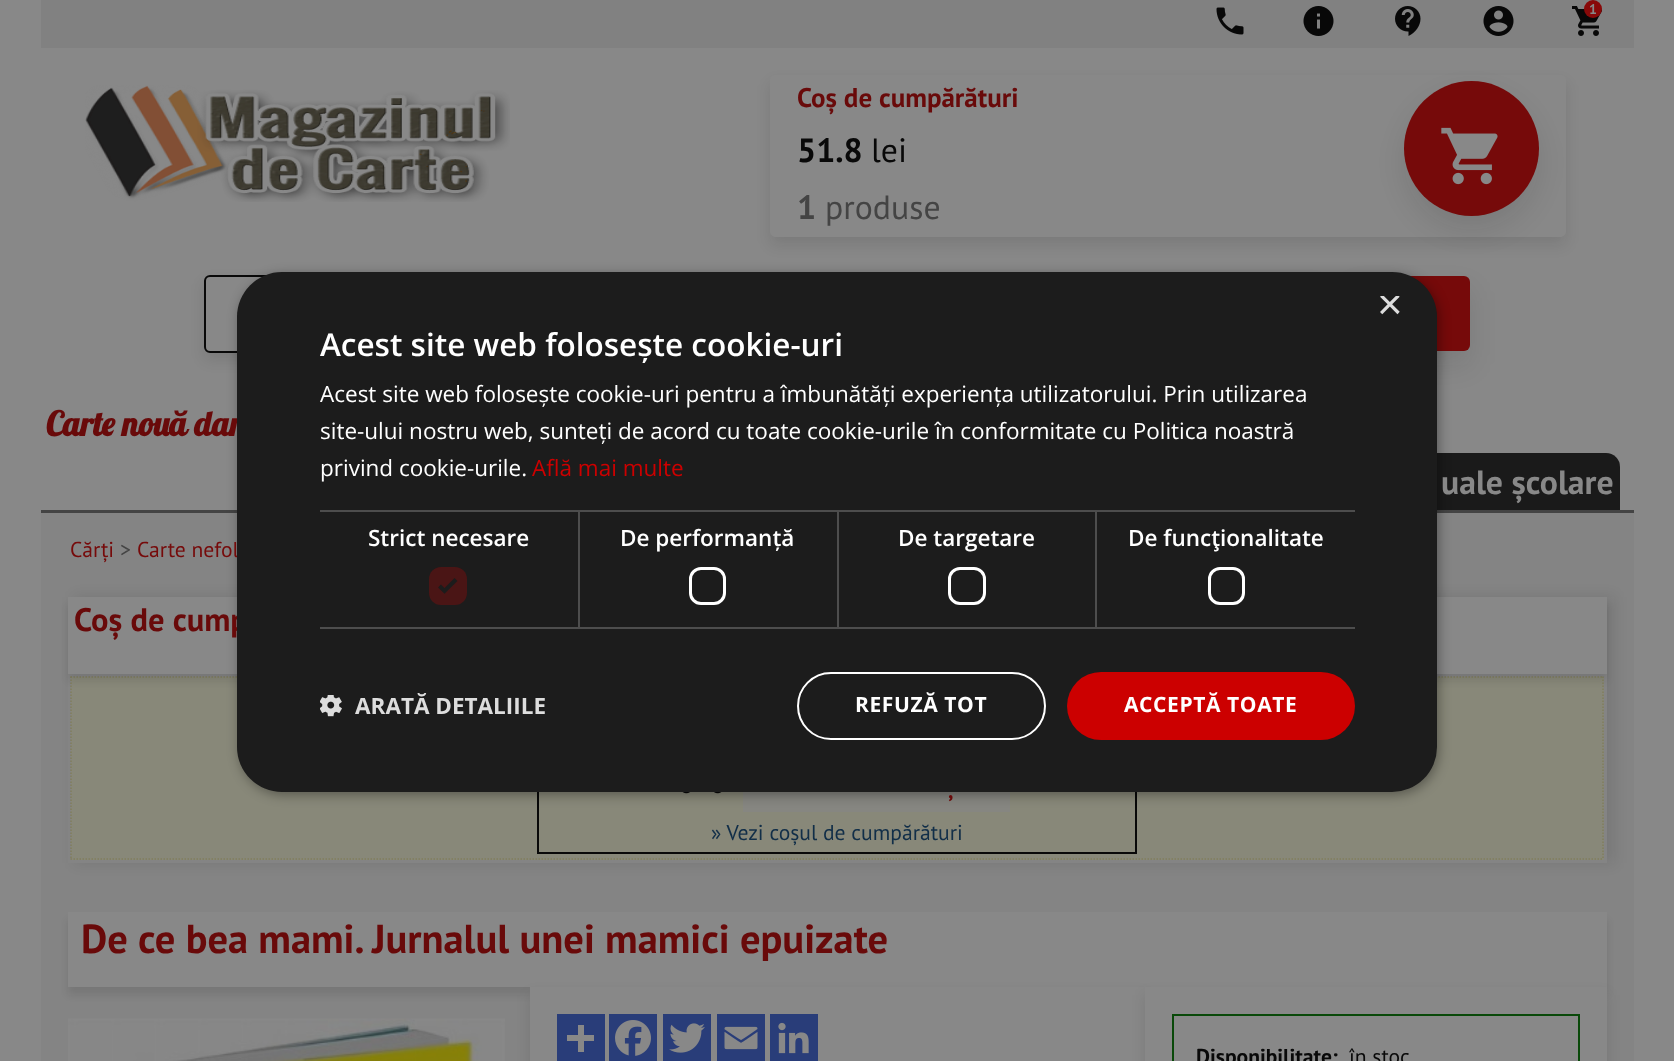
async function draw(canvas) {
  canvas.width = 1674;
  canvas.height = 1061;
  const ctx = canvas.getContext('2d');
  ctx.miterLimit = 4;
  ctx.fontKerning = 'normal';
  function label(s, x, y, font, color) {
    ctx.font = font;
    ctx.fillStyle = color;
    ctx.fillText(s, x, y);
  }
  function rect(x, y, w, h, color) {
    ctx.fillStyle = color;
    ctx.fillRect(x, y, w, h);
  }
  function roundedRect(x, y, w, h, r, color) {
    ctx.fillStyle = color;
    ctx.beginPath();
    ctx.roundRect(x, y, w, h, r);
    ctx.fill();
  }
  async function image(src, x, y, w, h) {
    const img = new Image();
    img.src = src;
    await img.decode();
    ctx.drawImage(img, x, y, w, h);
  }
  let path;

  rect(0, 0, 1674, 1061, '#888');
  rect(41, 0, 1593, 48, '#818181');
  await image('assets/img1.png', 1216, 7, 28, 28);
  await image('assets/img2.png', 1303, 6, 31, 30);
  await image('assets/img3.png', 1395, 6, 26, 30);
  await image('assets/img4.png', 1483, 6, 31, 30);
  await image('assets/img5.png', 1572, 6, 30, 30);
  ctx.fillStyle = '#880909';
  ctx.beginPath();
  ctx.arc(1593, 9, 9, 0, 2 * Math.PI);
  ctx.fill();
  label('1', 1589, 14, 'bold 14px PT Sans', '#888');
  await image('assets/img6.png', 85, 85, 425, 117);
  ctx.save();
  path = new Path2D('M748 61H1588V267H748ZM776 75H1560C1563.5 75 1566 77.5 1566 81V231C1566 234.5 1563.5 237 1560 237H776C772.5 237 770 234.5 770 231V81C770 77.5 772.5 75 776 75Z');
  ctx.clip(path, 'evenodd');
  ctx.fillStyle = '#0909091a';
  ctx.filter = 'blur(7px)';
  ctx.beginPath();
  ctx.roundRect(770, 83, 796, 162, 6);
  ctx.fill();
  ctx.filter = 'none';
  ctx.restore();
  label('Coș de cumpărături', 797, 107, 'bold 27px PT Sans', '#690a0a');
  ctx.fillStyle = '#0909091a';
  ctx.filter = 'blur(13.5px)';
  ctx.beginPath();
  ctx.roundRect(1404, 95, 135, 135, 67.5);
  ctx.fill();
  ctx.filter = 'none';
  ctx.fillStyle = '#760a0a';
  ctx.beginPath();
  ctx.arc(1471.5, 148.5, 67.5, 0, 2 * Math.PI);
  ctx.fill();
  await image('assets/img7.png', 1441, 127, 57, 58);
  label('51.8', 797, 162, 'bold 33.75px PT Sans', '#090909');
  label('lei', 871, 162, '33.75px PT Sans', '#090909');
  label('1', 797, 219, 'bold 33.75px PT Sans', '#444');
  label('produse', 825, 219, '33.75px PT Sans', '#444');
  ctx.save();
  path = new Path2D('M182 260H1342V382H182ZM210 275H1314C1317.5 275 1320 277.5 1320 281V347C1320 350.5 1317.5 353 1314 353H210C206.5 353 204 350.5 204 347V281C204 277.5 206.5 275 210 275Z');
  ctx.clip(path, 'evenodd');
  ctx.fillStyle = '#0909091a';
  ctx.filter = 'blur(7px)';
  ctx.beginPath();
  ctx.roundRect(204, 282, 1116, 78, 6);
  ctx.fill();
  ctx.filter = 'none';
  ctx.restore();
  ctx.fillStyle = '#888888f2';
  ctx.beginPath();
  ctx.roundRect(205, 276, 1114, 76, 5);
  ctx.fill();
  ctx.strokeStyle = '#090909';
  ctx.lineWidth = 2;
  ctx.stroke();
  ctx.fillStyle = '#0909091a';
  ctx.filter = 'blur(13.5px)';
  ctx.beginPath();
  ctx.roundRect(1350, 290, 120, 75, 6);
  ctx.fill();
  ctx.filter = 'none';
  roundedRect(1350, 276, 120, 75, 6, '#760a0a');
  rect(41, 510, 1593, 3, '#444');
  ctx.fillStyle = '#1a1a1a';
  ctx.beginPath();
  ctx.roundRect(1373, 453, 247, 57, [14, 14, 0, 0]);
  ctx.fill();
  rect(41, 513, 1593, 548, '#848484');
  ctx.save();
  path = new Path2D('M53 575H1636V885H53ZM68 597H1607V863H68Z');
  ctx.clip(path, 'evenodd');
  ctx.fillStyle = '#0909091a';
  ctx.filter = 'blur(7px)';
  ctx.beginPath();
  ctx.rect(75, 597, 1539, 266);
  ctx.fill();
  ctx.filter = 'none';
  ctx.restore();
  rect(71, 677, 1533, 183, '#888879');
  path = new Path2D('M70.5 677H1603.5');
  ctx.strokeStyle = '#807d5e';
  ctx.lineWidth = 1.5;
  ctx.setLineDash([1.5, 1.5]);
  ctx.stroke(path);
  path = new Path2D('M1603 676.5V859.5');
  ctx.stroke(path);
  path = new Path2D('M71 676.5V859.5');
  ctx.stroke(path);
  ctx.strokeStyle = '#090909';
  ctx.lineWidth = 2;
  ctx.setLineDash([]);
  ctx.strokeRect(538, 684, 598, 169);
  ctx.fillStyle = '#0909091a';
  ctx.filter = 'blur(3.5px)';
  ctx.beginPath();
  ctx.rect(68, 605, 1539, 76);
  ctx.fill();
  ctx.filter = 'none';
  rect(68, 597, 1539, 77, '#888');
  await image('assets/img9.png', 682, 792, 40, 2);
  rect(743, 792, 267, 20, '#868681');
  ctx.fillStyle = '#00000059';
  ctx.filter = 'blur(6px)';
  ctx.beginPath();
  ctx.roundRect(239, 275, 1200, 520, 45);
  ctx.fill();
  ctx.filter = 'none';
  label('Carte nouă dar', 46, 436, 'bold 33.75px Lobster', '#690a0a');
  label('Carte nefol', 137, 557, '21.6px PT Sans', '#760a0a');
  label('Coș de cump', 74, 631, 'bold 32.5px PT Sans', '#690a0a');
  roundedRect(237, 272, 1200, 520, 45, '#1c1c1c');
  ctx.save();
  ctx.beginPath();
  ctx.rect(1377, 296, 23, 22);
  ctx.clip();
  label('×', 1377, 319, '44px Liberation Sans', '#ddd');
  ctx.restore();
  label('Acest site web folosește cookie-uri', 320, 356, '600 31.5px Open Sans', '#fff');
  label('Acest site web folosește cookie-uri pentru a îmbunătăți experiența utilizatorului. Prin utilizarea', 320, 402, '22.5px Open Sans', '#fff');
  label('site-ului nostru web, sunteți de acord cu toate cookie-urile în conformitate cu Politica noastră', 320, 439, '22.5px Open Sans', '#fff');
  label('privind cookie-urile.', 320, 476, '22.5px Open Sans', '#fff');
  label('Află mai multe', 532, 476, '22.5px Open Sans', '#c00');
  rect(320, 510, 259, 2, '#4d4d4d');
  rect(578, 510, 2, 119, '#4d4d4d');
  rect(320, 627, 259, 2, '#4d4d4d');
  label('Strict necesare', 368, 546, '600 22.5px Open Sans', '#fff');
  roundedRect(429, 567, 38, 38, 12, '#4a1515');
  path = new Path2D('M439.5 586L444.5 591L456 579.5');
  ctx.strokeStyle = '#1c1c1c';
  ctx.lineWidth = 3.9;
  ctx.stroke(path);
  rect(579, 510, 776, 2, '#4d4d4d');
  rect(837, 510, 2, 119, '#4d4d4d');
  rect(579, 627, 260, 2, '#4d4d4d');
  label('De performanță', 620, 546, '600 22.5px Open Sans', '#fff');
  ctx.beginPath();
  ctx.roundRect(690.5, 568.5, 34, 35, 10.5);
  ctx.strokeStyle = '#fff';
  ctx.lineWidth = 3;
  ctx.stroke();
  rect(1095, 510, 2, 119, '#4d4d4d');
  rect(839, 627, 516, 2, '#4d4d4d');
  label('De targetare', 898, 546, '600 22.5px Open Sans', '#fff');
  ctx.beginPath();
  ctx.roundRect(949.5, 568.5, 35, 35, 10.5);
  ctx.stroke();
  label('De funcţionalitate', 1128, 546, '600 22.5px Open Sans', '#fff');
  ctx.beginPath();
  ctx.roundRect(1209.5, 568.5, 34, 35, 10.5);
  ctx.stroke();
  await image('assets/img8.png', 320, 695, 22, 22);
  label('ARATĂ DETALIILE', 355, 714, 'bold 22.5px Open Sans', '#ddd');
  ctx.beginPath();
  ctx.roundRect(798, 673, 247, 66, 33);
  ctx.lineWidth = 2;
  ctx.stroke();
  ctx.letterSpacing = '0.6px';
  label('REFUZĂ TOT', 855, 712, 'bold 21px Open Sans', '#fff');
  roundedRect(1067, 672, 288, 68, 34, '#c00');
  label('ACCEPTĂ TOATE', 1124, 712, 'bold 21px Open Sans', '#fff');
  ctx.letterSpacing = '0px';
  label('uale școlare', 1441, 494, 'bold 33.75px PT Sans', '#888');
  label('Cărți', 70, 557, '21.6px PT Sans', '#760a0a');
  label('>', 120, 557, '21.6px PT Sans', '#444');
  path = new Path2D('M70.5 859H1603.5');
  ctx.strokeStyle = '#807d5e';
  ctx.lineWidth = 1.5;
  ctx.setLineDash([1.5, 1.5]);
  ctx.stroke(path);
  label(',', 948, 798, 'bold 21.6px PT Sans', '#690a0a');
  label('» Vezi coșul de cumpărături', 711, 840, '21.6px PT Sans', '#112e48');
  ctx.fillStyle = '#0909091a';
  ctx.filter = 'blur(3.5px)';
  ctx.beginPath();
  ctx.rect(68, 920, 1539, 75);
  ctx.fill();
  ctx.filter = 'none';
  rect(68, 912, 1539, 75, '#888');
  label('De ce bea mami. Jurnalul unei mamici epuizate', 81, 953, 'bold 40.5px PT Sans', '#690a0a');
  await image('assets/img10.png', 68, 1018, 437, 43);
  ctx.fillStyle = '#0909091a';
  ctx.filter = 'blur(7px)';
  ctx.beginPath();
  ctx.rect(530, 995, 615, 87);
  ctx.fill();
  ctx.filter = 'none';
  rect(530, 987, 615, 74, '#888');
  rect(557, 1014, 48, 47, '#293d79');
  rect(609, 1014, 48, 47, '#293d79');
  rect(663, 1014, 48, 47, '#293d79');
  rect(717, 1014, 48, 47, '#293d79');
  rect(770, 1014, 48, 47, '#293d79');
  rect(578, 1025, 6, 27, '#888');
  await image('assets/img11.png', 615, 1020, 36, 36);
  await image('assets/img12.png', 669, 1023, 36, 30);
  await image('assets/img13.png', 724, 1026, 34, 24);
  await image('assets/img14.png', 778, 1022, 31, 32);
  rect(567, 1035, 27, 6, '#888');
  ctx.fillStyle = '#0909091a';
  ctx.filter = 'blur(7px)';
  ctx.beginPath();
  ctx.rect(1145, 995, 462, 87);
  ctx.fill();
  ctx.filter = 'none';
  rect(1145, 987, 462, 74, '#888');
  ctx.strokeStyle = '#094909';
  ctx.lineWidth = 2;
  ctx.setLineDash([]);
  ctx.strokeRect(1173, 1015, 406, 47);
  label('Disponibilitate:', 1196, 1064, 'bold 21.6px PT Sans', '#090909');
  label('în stoc', 1349, 1064, '21.6px PT Sans', '#090909');
}

draw(document.querySelector('canvas'));
